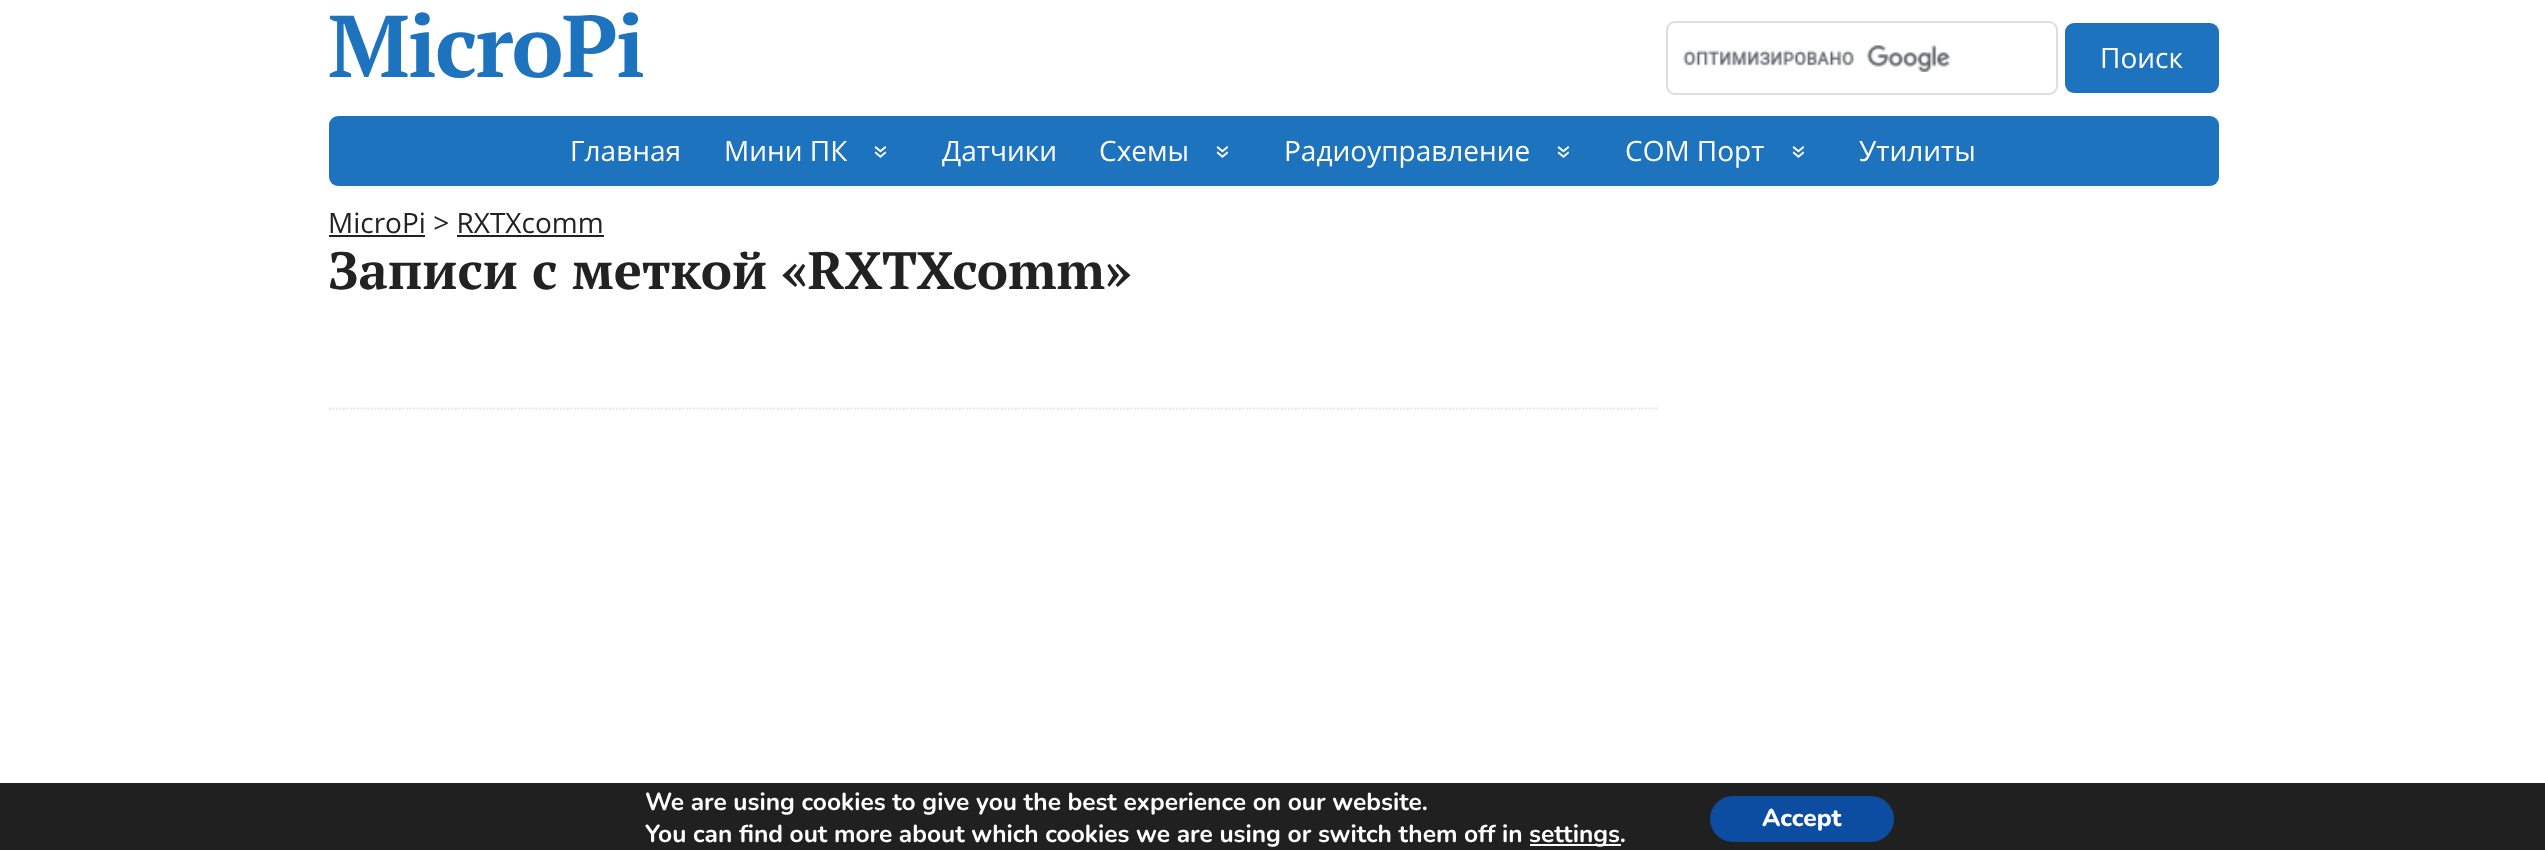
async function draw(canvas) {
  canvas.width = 2545;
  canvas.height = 850;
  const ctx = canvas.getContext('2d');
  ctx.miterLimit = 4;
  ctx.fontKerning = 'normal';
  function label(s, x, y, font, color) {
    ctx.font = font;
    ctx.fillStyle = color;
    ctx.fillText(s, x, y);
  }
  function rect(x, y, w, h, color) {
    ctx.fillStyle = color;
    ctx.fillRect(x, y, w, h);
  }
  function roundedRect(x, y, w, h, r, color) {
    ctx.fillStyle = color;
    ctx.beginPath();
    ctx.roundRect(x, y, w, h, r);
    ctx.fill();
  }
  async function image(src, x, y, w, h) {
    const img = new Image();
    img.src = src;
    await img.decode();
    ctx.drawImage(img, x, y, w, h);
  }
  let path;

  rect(0, 0, 2545, 850, '#fff');
  ctx.letterSpacing = '-1.75px';
  label('MicroPi', 328, 77, 'bold 87.5px PT Serif', '#1e73be');
  await image('assets/img1.png', 1683, 45, 267, 27);
  ctx.beginPath();
  ctx.roundRect(1667, 22, 390, 72, 8);
  ctx.strokeStyle = '#ddd';
  ctx.lineWidth = 2;
  ctx.stroke();
  roundedRect(2065, 23, 154, 70, 9, '#1e73be');
  ctx.letterSpacing = '0px';
  label('Поиск', 2100, 68, '28px Open Sans', '#fff');
  roundedRect(329, 116, 1890, 70, 9, '#1e73be');
  label('Главная', 570, 161, '28px Open Sans', '#fff');
  label('Мини ПК', 724, 161, '28px Open Sans', '#fff');
  ctx.save();
  ctx.translate(873, 145);
  ctx.rotate(90 * Math.PI / 180);
  ctx.fillText('»', 0, 0);
  ctx.restore();
  label('Датчики', 942, 161, '28px Open Sans', '#fff');
  label('Схемы', 1099, 161, '28px Open Sans', '#fff');
  ctx.save();
  ctx.translate(1215, 145);
  ctx.rotate(90 * Math.PI / 180);
  ctx.fillText('»', 0, 0);
  ctx.restore();
  label('Радиоуправление', 1284, 161, '28px Open Sans', '#fff');
  ctx.save();
  ctx.translate(1556, 145);
  ctx.rotate(90 * Math.PI / 180);
  ctx.fillText('»', 0, 0);
  ctx.restore();
  label('COM Порт', 1625, 161, '28px Open Sans', '#fff');
  ctx.save();
  ctx.translate(1791, 145);
  ctx.rotate(90 * Math.PI / 180);
  ctx.fillText('»', 0, 0);
  ctx.restore();
  label('Утилиты', 1859, 161, '28px Open Sans', '#fff');
  label('MicroPi > RXTXcomm', 328, 233, '28px Open Sans', '#222');
  rect(329, 235, 96, 2, '#222');
  rect(457, 235, 147, 2, '#222');
  path = new Path2D('M329 408.5H1659');
  ctx.strokeStyle = '#e2e2e2';
  ctx.lineWidth = 1.8;
  ctx.setLineDash([1.75, 1.75]);
  ctx.stroke(path);
  label('Записи с меткой «RXTXcomm»', 328, 289, 'bold 52.5px PT Serif', '#222');
  rect(0, 783, 2545, 67, '#202020');
  label('We are using cookies to give you the best experience on our website.', 645, 810, 'bold 24.5px Nunito', '#fff');
  label('You can find out more about which cookies we are using or switch them off in', 645, 842, 'bold 24.5px Nunito', '#fff');
  rect(1530, 844, 91, 2, '#fff');
  label('settings.', 1529, 842, 'bold 24.5px Nunito', '#fff');
  roundedRect(1710, 796, 184, 46, 23, '#0c4da2');
  label('Accept', 1762, 826, '800 24.5px Nunito', '#fff');
}

draw(document.querySelector('canvas'));
